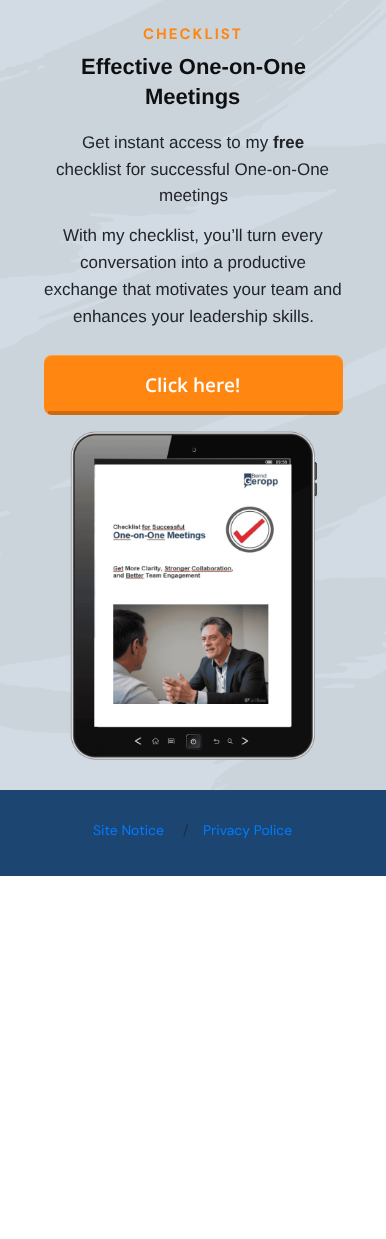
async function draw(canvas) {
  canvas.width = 386;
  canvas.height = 1239;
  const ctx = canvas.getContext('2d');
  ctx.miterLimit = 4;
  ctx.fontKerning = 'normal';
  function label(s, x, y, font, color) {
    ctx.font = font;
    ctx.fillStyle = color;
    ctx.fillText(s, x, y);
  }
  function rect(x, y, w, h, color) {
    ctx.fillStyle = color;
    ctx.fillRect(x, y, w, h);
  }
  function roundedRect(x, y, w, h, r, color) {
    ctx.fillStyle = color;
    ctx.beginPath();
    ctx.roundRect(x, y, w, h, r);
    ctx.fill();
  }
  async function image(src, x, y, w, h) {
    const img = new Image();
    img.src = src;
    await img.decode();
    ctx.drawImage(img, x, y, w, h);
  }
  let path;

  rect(0, 0, 386, 1239, '#fff');
  rect(0, 0, 386, 790, '#d2dae3');
  await image('assets/img1.png', 0, 0, 386, 790);
  ctx.letterSpacing = '2px';
  label('CHECKLIST', 143, 39, 'bold 15px DM Sans', '#ff8611');
  ctx.letterSpacing = '0px';
  label('Effective One-on-One', 81, 74, 'bold 22px Liberation Sans', '#0f0f0f');
  label('Meetings', 145, 104, 'bold 22px Liberation Sans', '#0f0f0f');
  label('Get instant access to my', 82, 148, '17px Liberation Sans', '#212529');
  label('free', 273, 148, 'bold 17px Liberation Sans', '#212529');
  label('checklist for successful One-on-One', 56, 175, '17px Liberation Sans', '#212529');
  label('meetings', 159, 201, '17px Liberation Sans', '#212529');
  label('With my checklist, you’ll turn every', 63, 241, '17px Liberation Sans', '#212529');
  label('conversation into a productive', 80, 268, '17px Liberation Sans', '#212529');
  label('exchange that motivates your team and', 44, 295, '17px Liberation Sans', '#212529');
  label('enhances your leadership skills.', 73, 322, '17px Liberation Sans', '#212529');
  roundedRect(44, 355, 299, 60, 8, '#ff8611');
  ctx.fillStyle = '#ffffff38';
  path = new Path2D('M52 356C48 356 44 360 44 364V363C44 359 48 355 52 355H335C339 355 343 359 343 363V364C343 360 339 356 335 356Z');
  ctx.fill(path);
  ctx.save();
  ctx.beginPath();
  ctx.roundRect(44, 355, 299, 60, 8);
  ctx.clip();
  rect(48, 411, 291, 4, '#00000033');
  ctx.restore();
  label('Click here!', 145, 392, '600 19px Open Sans', '#fff');
  await image('assets/img2.png', 70, 431, 247, 329);
  rect(0, 790, 386, 86, '#1c4571');
  label('Site Notice', 93, 835, '14px DM Sans', '#007bff');
  label('/', 183, 835, '14px DM Sans', '#202b37');
  label('Privacy Police', 203, 835, '14px DM Sans', '#007bff');
}

draw(document.querySelector('canvas'));
